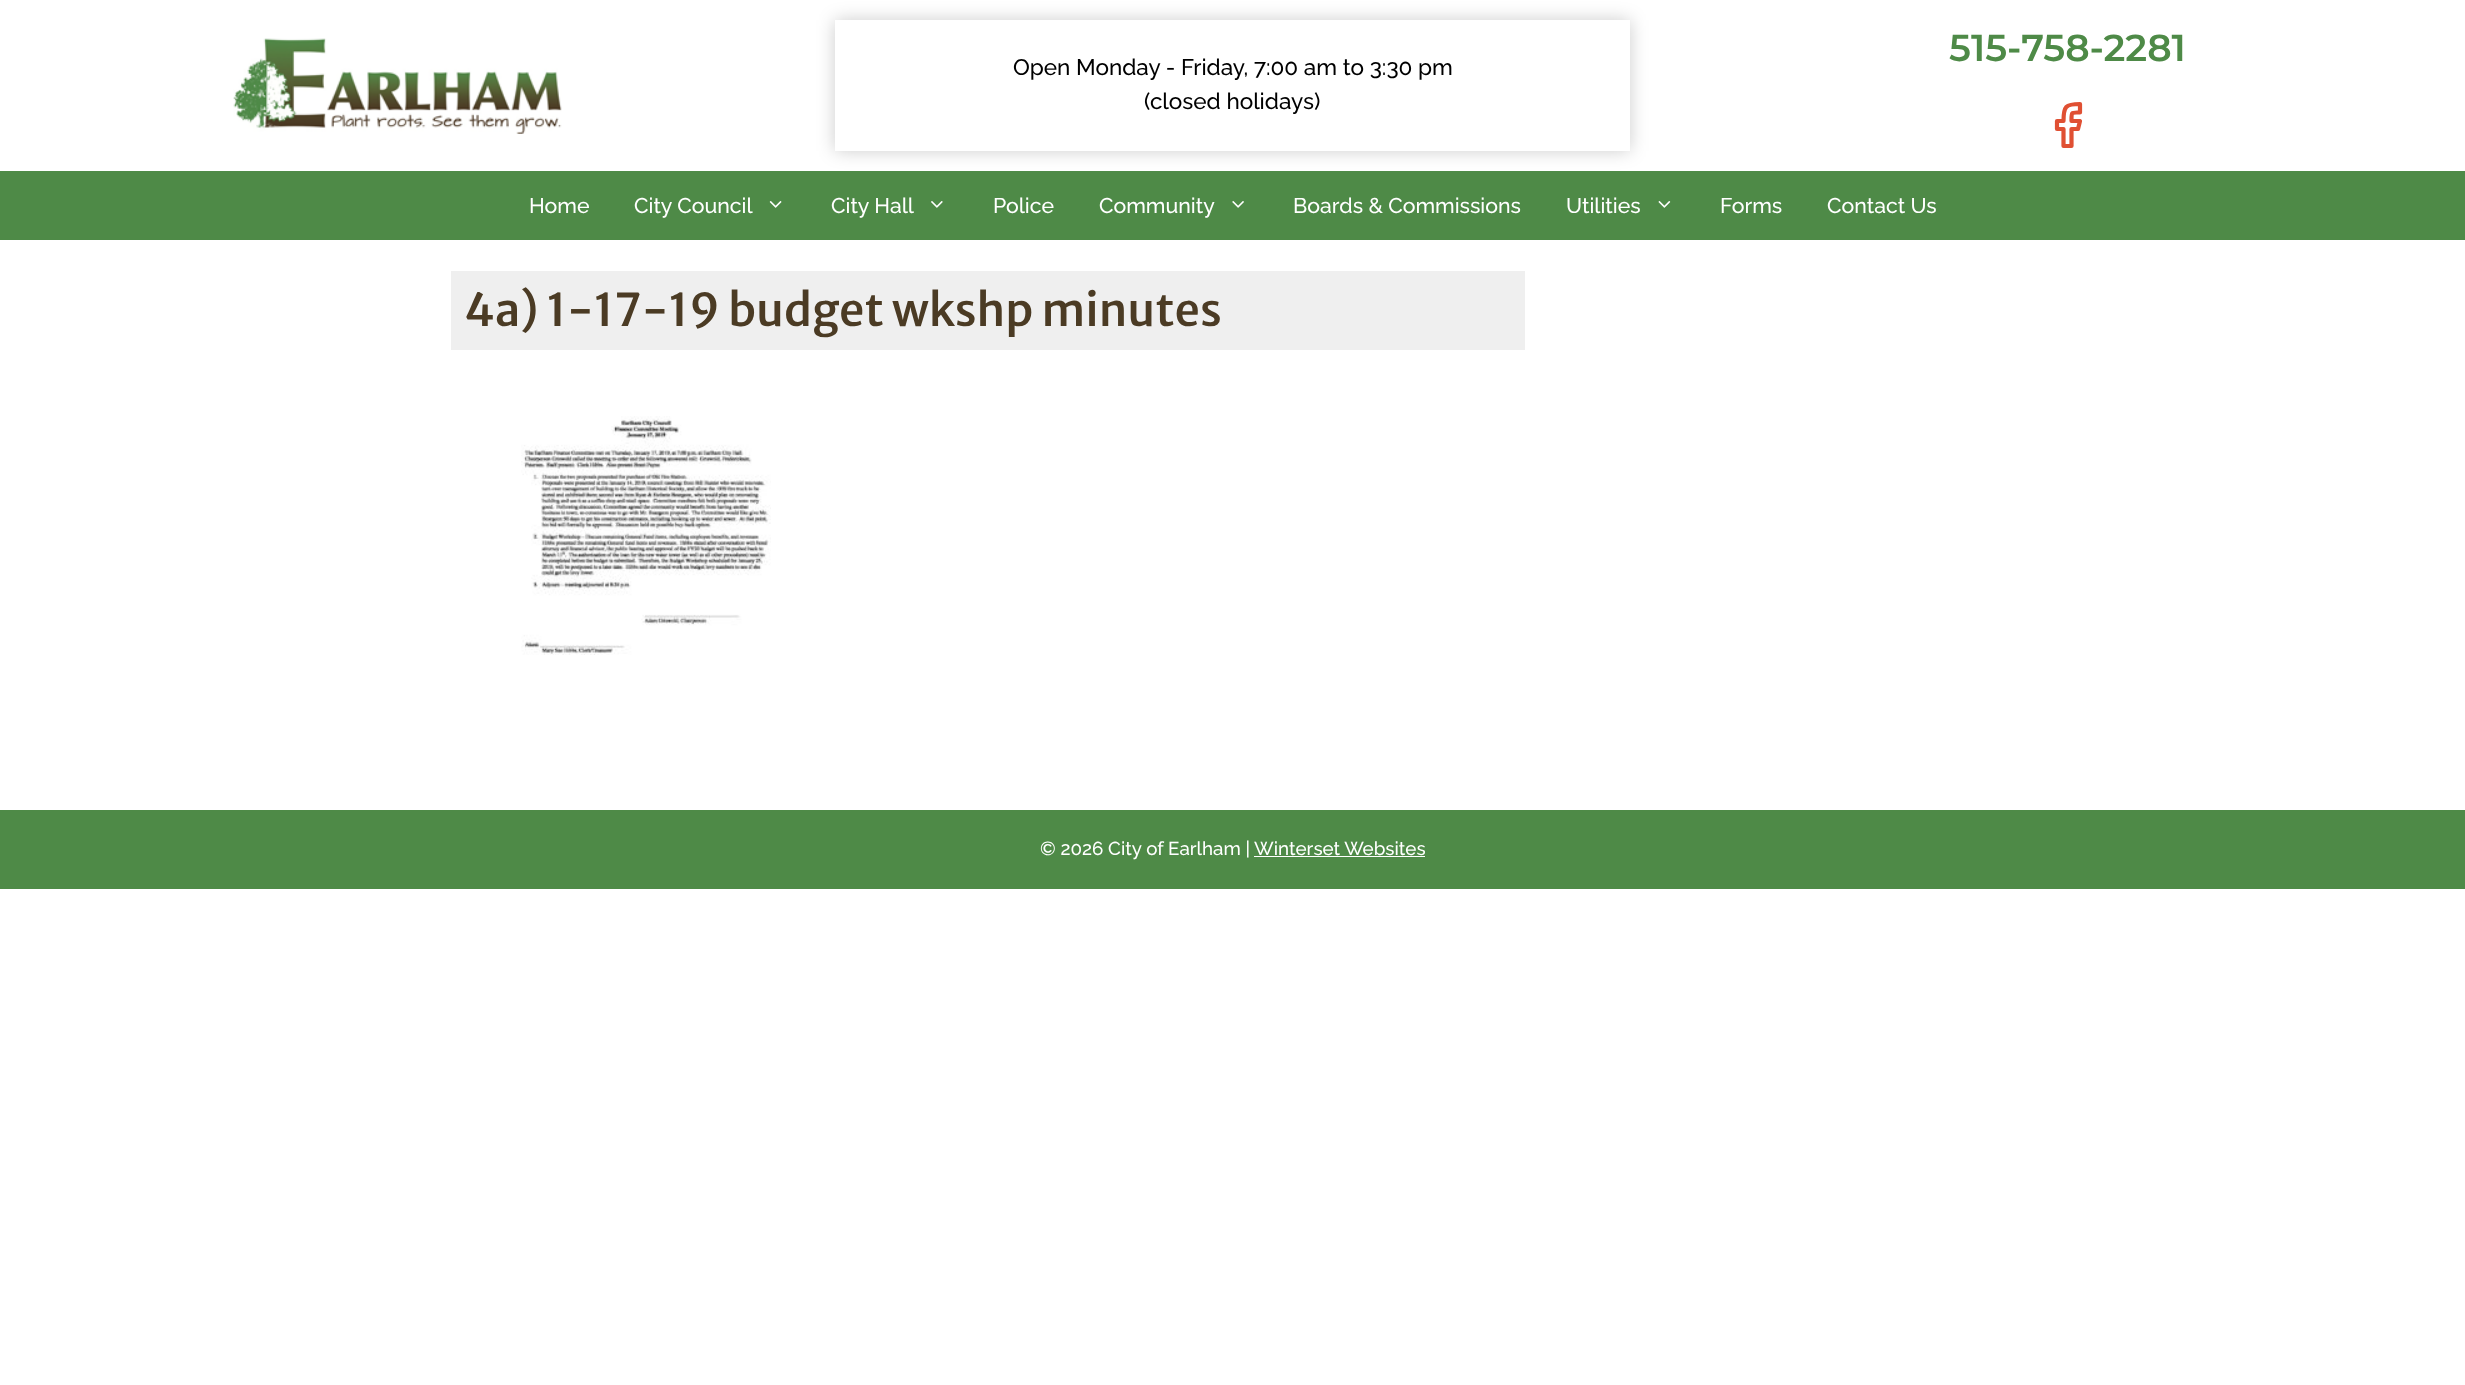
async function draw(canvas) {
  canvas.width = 2465;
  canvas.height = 1385;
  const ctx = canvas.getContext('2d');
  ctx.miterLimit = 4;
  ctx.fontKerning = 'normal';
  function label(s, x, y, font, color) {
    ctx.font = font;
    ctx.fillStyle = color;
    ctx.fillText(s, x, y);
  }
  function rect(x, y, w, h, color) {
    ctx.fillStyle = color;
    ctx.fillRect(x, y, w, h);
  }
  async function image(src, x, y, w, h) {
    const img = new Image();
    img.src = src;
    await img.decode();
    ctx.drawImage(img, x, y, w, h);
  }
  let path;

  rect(0, 0, 2465, 1385, '#fff');
  await image('assets/img1.png', 233, 38, 329, 96);
  rect(0, 171, 2465, 69, '#4e8a47');
  ctx.save();
  path = new Path2D('M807 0H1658V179H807ZM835 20H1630V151H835Z');
  ctx.clip(path, 'evenodd');
  ctx.fillStyle = '#00000033';
  ctx.filter = 'blur(9px)';
  ctx.beginPath();
  ctx.rect(835, 20, 795, 131);
  ctx.fill();
  ctx.filter = 'none';
  ctx.restore();
  label('Open Monday - Friday, 7:00 am to 3:30 pm', 1013, 75, '500 22.5px Raleway', '#000');
  label('(closed holidays)', 1144, 109, '500 22.5px Raleway', '#000');
  label('515-758-2281', 1949, 61, '600 37.5px Montserrat', '#4e8a47');
  path = new Path2D('M2080 104C2065.5 104 2063.5 106.5 2063.5 121H2057V129H2063.5V146H2071.5V129H2078L2080 121H2071.5C2071.5 111.5 2071 112.5 2080 112.5Z');
  ctx.strokeStyle = '#e05033';
  ctx.lineWidth = 4.2;
  ctx.lineCap = 'round';
  ctx.lineJoin = 'round';
  ctx.stroke(path);
  label('Home', 529, 213, '500 21.25px Raleway', '#fff');
  label('City Council', 634, 213, '500 21.25px Raleway', '#fff');
  await image('assets/img2.png', 769, 201, 13, 7);
  label('City Hall', 831, 213, '500 21.25px Raleway', '#fff');
  await image('assets/img3.png', 931, 201, 12, 7);
  label('Police', 993, 213, '500 21.25px Raleway', '#fff');
  label('Community', 1099, 213, '500 21.25px Raleway', '#fff');
  await image('assets/img4.png', 1232, 201, 12, 7);
  label('Boards & Commissions', 1293, 213, '500 21.25px Raleway', '#fff');
  label('Utilities', 1566, 213, '500 21.25px Raleway', '#fff');
  await image('assets/img5.png', 1658, 201, 13, 7);
  label('Forms', 1720, 213, '500 21.25px Raleway', '#fff');
  label('Contact Us', 1827, 213, '500 21.25px Raleway', '#fff');
  rect(451, 271, 1074, 79, '#efefef');
  label('4a) 1-17-19 budget wkshp minutes', 464, 326, '500 45px Merriweather Sans', '#4b3b24');
  await image('assets/img6.png', 521, 416, 250, 239);
  rect(0, 810, 2465, 79, '#4e8a47');
  label('© 2026 City of Earlham | Winterset Websites', 1040, 855, '500 18.75px Raleway', '#fff');
  rect(1254, 856, 171, 1, '#fff');
}

draw(document.querySelector('canvas'));
